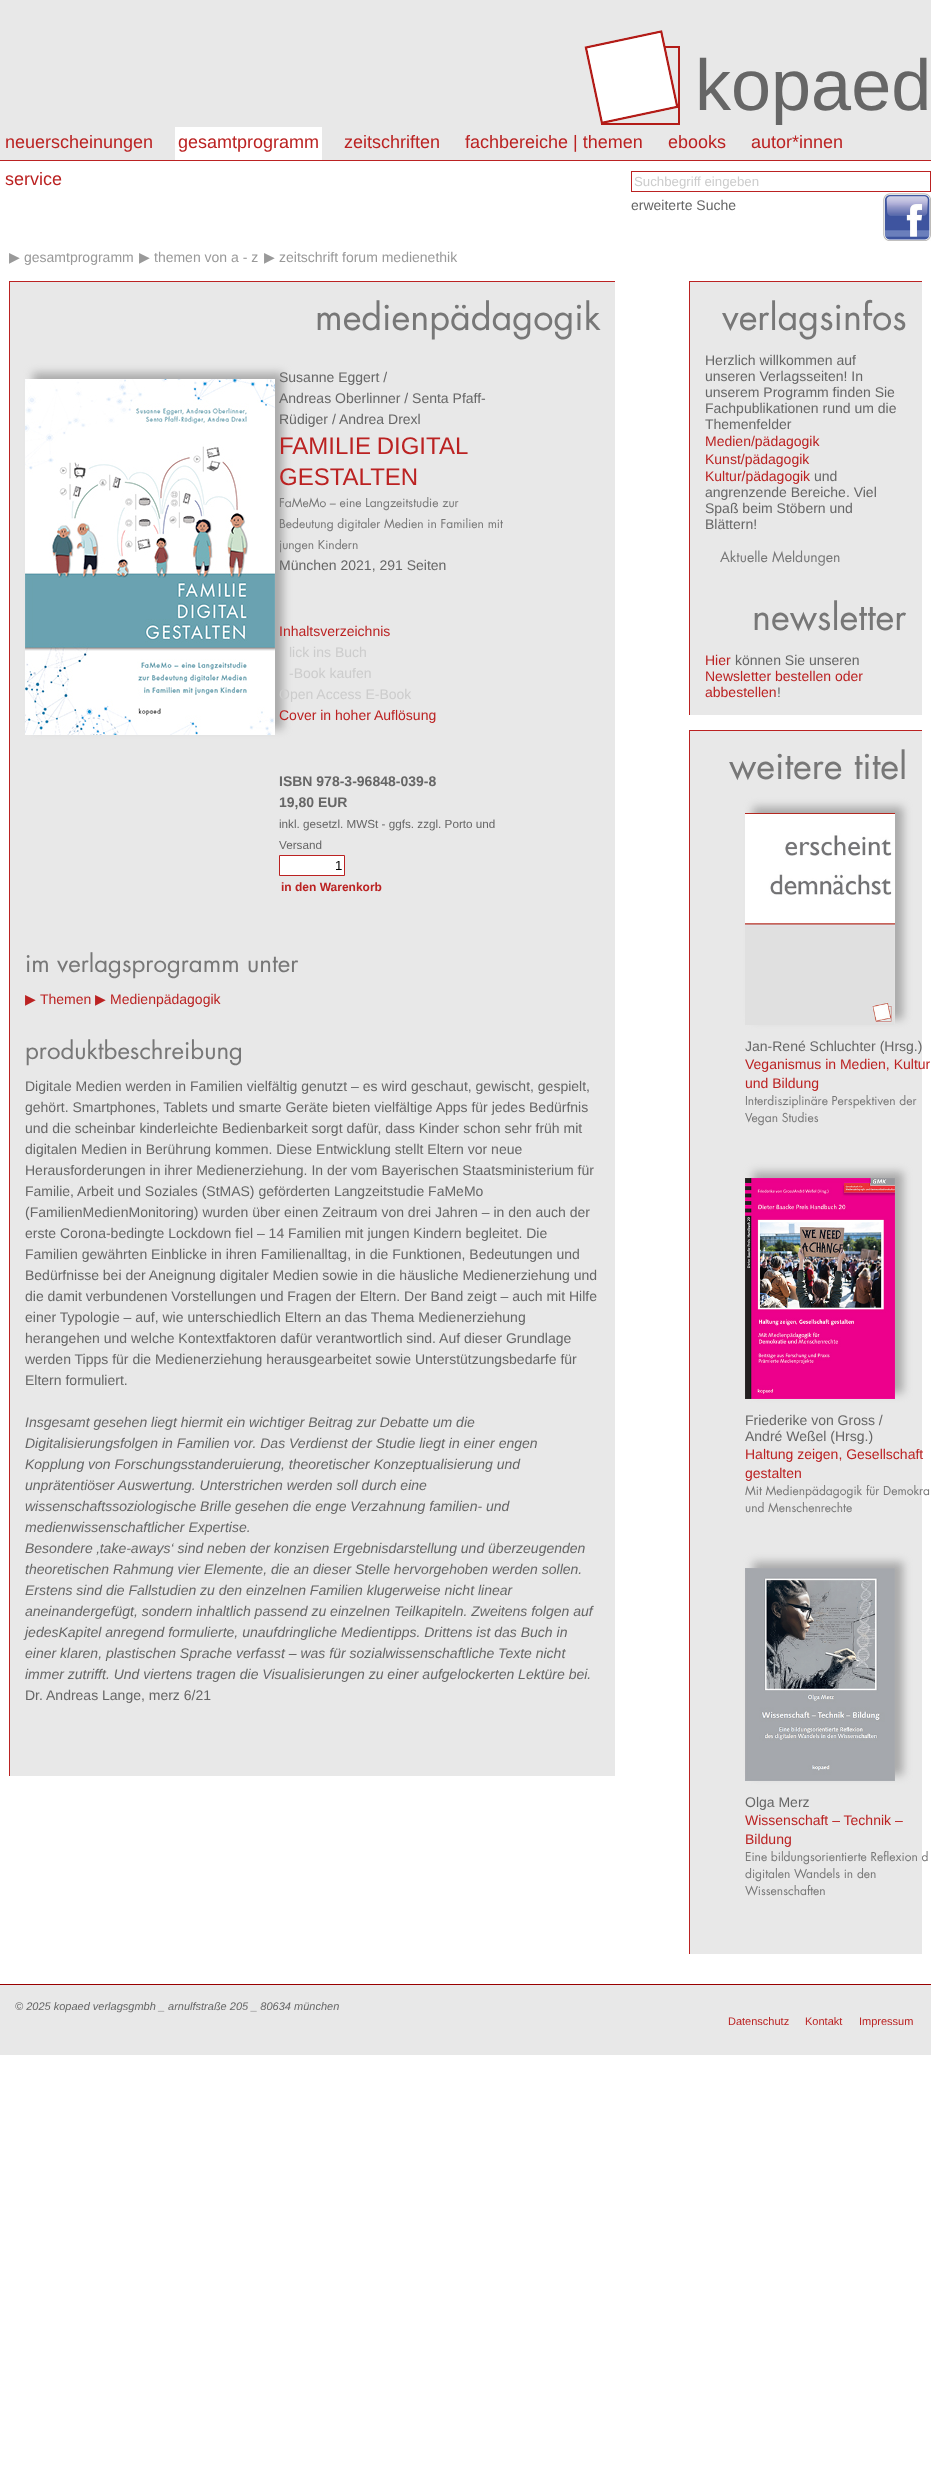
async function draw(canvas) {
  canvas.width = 931;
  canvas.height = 2490;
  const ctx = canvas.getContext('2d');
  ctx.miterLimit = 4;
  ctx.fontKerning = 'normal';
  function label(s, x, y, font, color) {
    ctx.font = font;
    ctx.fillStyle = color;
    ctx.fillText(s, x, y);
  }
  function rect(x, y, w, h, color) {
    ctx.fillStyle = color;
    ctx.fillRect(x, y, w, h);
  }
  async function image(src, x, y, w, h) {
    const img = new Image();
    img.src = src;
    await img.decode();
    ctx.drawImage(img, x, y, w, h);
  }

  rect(0, 0, 931, 2490, '#fff');
  rect(0, 0, 931, 160, '#e8e8e8');
  rect(0, 160, 931, 1, '#b22');
  await image('assets/img1.png', 584, 30, 96, 95);
  label('kopaed', 695, 110, '72px Liberation Sans', '#666');
  label('neuerscheinungen', 5, 148, '18px Liberation Sans', '#b22');
  rect(175, 127, 147, 33, '#fff');
  label('gesamtprogramm', 178, 148, '18px Liberation Sans', '#b22');
  label('zeitschriften', 344, 148, '18px Liberation Sans', '#b22');
  label('fachbereiche | themen', 465, 148, '18px Liberation Sans', '#b22');
  label('ebooks', 668, 148, '18px Liberation Sans', '#b22');
  label('autor*innen', 751, 148, '18px Liberation Sans', '#b22');
  label('service', 5, 185, '18px Liberation Sans', '#b22');
  ctx.strokeStyle = '#b22';
  ctx.strokeRect(631.5, 171.5, 299, 20);
  label('Suchbegriff eingeben', 634, 186, '13.25px Liberation Sans', '#ccc');
  label('erweiterte Suche', 631, 210, '14px Liberation Sans', '#666');
  await image('assets/img2.png', 883, 193, 48, 48);
  label('▶', 9, 262, '14px DejaVu Sans', '#999');
  label('gesamtprogramm', 24, 262, '14px Liberation Sans', '#999');
  label('▶', 139, 262, '14px DejaVu Sans', '#999');
  label('themen von a - z', 154, 262, '14px Liberation Sans', '#999');
  label('▶', 264, 262, '14px DejaVu Sans', '#999');
  label('zeitschrift forum medienethik', 279, 262, '14px Liberation Sans', '#999');
  rect(10, 282, 605, 1494, '#e8e8e8');
  rect(9, 281, 606, 1, '#b22');
  rect(9, 281, 1, 1495, '#b22');
  label('medienpädagogik', 315, 330, '36px Futura', '#777');
  ctx.fillStyle = '#aaa';
  ctx.filter = 'blur(4px)';
  ctx.beginPath();
  ctx.rect(33, 373, 250, 356);
  ctx.fill();
  ctx.filter = 'none';
  await image('assets/img3.png', 25, 379, 250, 356);
  label('Susanne Eggert /', 279, 382, '14px Liberation Sans', '#666');
  label('Andreas Oberlinner / Senta Pfaff-', 279, 403, '14px Liberation Sans', '#666');
  label('Rüdiger', 279, 424, '14px Liberation Sans', '#666');
  label('/', 332, 424, '14px Liberation Sans', '#666');
  label('Andrea Drexl', 339, 424, '14px Liberation Sans', '#666');
  ctx.wordSpacing = '-1px';
  label('FAMILIE DIGITAL', 279, 454, '24px Liberation Sans', '#b22');
  ctx.wordSpacing = '0px';
  label('GESTALTEN', 279, 485, '24px Liberation Sans', '#b22');
  label('FaMeMo – eine Langzeitstudie zur', 279, 507, '12px Futura', '#777');
  label('Bedeutung digitaler Medien in Familien mit', 279, 528, '12px Futura', '#777');
  label('jungen Kindern', 279, 549, '12px Futura', '#777');
  label('München 2021, 291 Seiten', 279, 570, '14px Liberation Sans', '#666');
  label('Inhaltsverzeichnis', 279, 636, '14px Liberation Sans', '#b22');
  label('lick ins Buch', 289, 657, '14px Liberation Sans', '#ccc');
  label('-Book kaufen', 289, 678, '14px Liberation Sans', '#ccc');
  label('Open Access E-Book', 279, 699, '14px Liberation Sans', '#ccc');
  label('Cover in hoher Auflösung', 279, 720, '14px Liberation Sans', '#b22');
  label('ISBN 978-3-96848-039-8', 279, 786, 'bold 14px Liberation Sans', '#666');
  label('19,80 EUR', 279, 807, 'bold 14px Liberation Sans', '#666');
  label('inkl. gesetzl. MWSt - ggfs. zzgl. Porto und', 279, 828, '11.7px Liberation Sans', '#666');
  label('Versand', 279, 849, '11.7px Liberation Sans', '#666');
  ctx.fillStyle = '#fff';
  ctx.beginPath();
  ctx.rect(279.5, 855.5, 65, 20);
  ctx.fill();
  ctx.stroke();
  label('1', 335, 870, '13.25px Liberation Sans', '#000');
  label('in den Warenkorb', 281, 891, 'bold 12px Liberation Sans', '#b22');
  label('im verlagsprogramm unter', 25, 972, '24px Futura', '#777');
  label('▶', 25, 1004, '14px DejaVu Sans', '#b22');
  label('Themen', 40, 1004, '14px Liberation Sans', '#b22');
  label('▶', 95, 1004, '14px DejaVu Sans', '#b22');
  label('Medienpädagogik', 110, 1004, '14px Liberation Sans', '#b22');
  label('produktbeschreibung', 25, 1059, '24px Futura', '#777');
  label('Digitale Medien werden in Familien vielfältig genutzt – es wird geschaut, gewischt, gespielt,', 25, 1091, '14px Liberation Sans', '#666');
  label('gehört. Smartphones, Tablets und smarte Geräte bieten vielfältige Apps für jedes Bedürfnis', 25, 1112, '14px Liberation Sans', '#666');
  label('und die scheinbar kinderleichte Bedienbarkeit sorgt dafür, dass Kinder schon sehr früh mit', 25, 1133, '14px Liberation Sans', '#666');
  label('digitalen Medien in Berührung kommen. Diese Entwicklung stellt Eltern vor neue', 25, 1154, '14px Liberation Sans', '#666');
  label('Herausforderungen in ihrer Medienerziehung. In der vom Bayerischen Staatsministerium für', 25, 1175, '14px Liberation Sans', '#666');
  label('Familie, Arbeit und Soziales (StMAS) geförderten Langzeitstudie FaMeMo', 25, 1196, '14px Liberation Sans', '#666');
  label('(FamilienMedienMonitoring) wurden über einen Zeitraum von drei Jahren – in den auch der', 25, 1217, '14px Liberation Sans', '#666');
  label('erste Corona-bedingte Lockdown fiel – 14 Familien mit jungen Kindern begleitet. Die', 25, 1238, '14px Liberation Sans', '#666');
  label('Familien gewährten Einblicke in ihren Familienalltag, in die Funktionen, Bedeutungen und', 25, 1259, '14px Liberation Sans', '#666');
  label('Bedürfnisse bei der Aneignung digitaler Medien sowie in die häusliche Medienerziehung und', 25, 1280, '14px Liberation Sans', '#666');
  label('die damit verbundenen Vorstellungen und Fragen der Eltern. Der Band zeigt – auch mit Hilfe', 25, 1301, '14px Liberation Sans', '#666');
  label('einer Typologie – auf, wie unterschiedlich Eltern an das Thema Medienerziehung', 25, 1322, '14px Liberation Sans', '#666');
  label('herangehen und welche Kontextfaktoren dafür verantwortlich sind. Auf dieser Grundlage', 25, 1343, '14px Liberation Sans', '#666');
  label('werden Tipps für die Medienerziehung herausgearbeitet sowie Unterstützungsbedarfe für', 25, 1364, '14px Liberation Sans', '#666');
  label('Eltern formuliert.', 25, 1385, '14px Liberation Sans', '#666');
  label('Insgesamt gesehen liegt hiermit ein wichtiger Beitrag zur Debatte um die', 25, 1427, 'italic 14px Liberation Sans', '#666');
  label('Digitalisierungsfolgen in Familien vor. Das Verdienst der Studie liegt in einer engen', 25, 1448, 'italic 14px Liberation Sans', '#666');
  label('Kopplung von Forschungsstanderuierung, theoretischer Konzeptualisierung und', 25, 1469, 'italic 14px Liberation Sans', '#666');
  label('unprätentiöser Auswertung. Unterstrichen werden soll durch eine', 25, 1490, 'italic 14px Liberation Sans', '#666');
  label('wissenschaftssoziologische Brille gesehen die enge Verzahnung familien- und', 25, 1511, 'italic 14px Liberation Sans', '#666');
  label('medienwissenschaftlicher Expertise.', 25, 1532, 'italic 14px Liberation Sans', '#666');
  label('Besondere ‚take-aways‘ sind neben der konzisen Ergebnisdarstellung und überzeugenden', 25, 1553, 'italic 14px Liberation Sans', '#666');
  label('theoretischen Rahmung vier Elemente, die an dieser Stelle hervorgehoben werden sollen.', 25, 1574, 'italic 14px Liberation Sans', '#666');
  label('Erstens sind die Fallstudien zu den einzelnen Familien klugerweise nicht linear', 25, 1595, 'italic 14px Liberation Sans', '#666');
  label('aneinandergefügt, sondern inhaltlich passend zu einzelnen Teilkapiteln. Zweitens folgen auf', 25, 1616, 'italic 14px Liberation Sans', '#666');
  label('jedesKapitel anregend formulierte, unaufdringliche Medientipps. Drittens ist das Buch in', 25, 1637, 'italic 14px Liberation Sans', '#666');
  label('einer klaren, plastischen Sprache verfasst – was für sozialwissenschaftliche Texte nicht', 25, 1658, 'italic 14px Liberation Sans', '#666');
  label('immer zutrifft. Und viertens tragen die Visualisierungen zu einer aufgelockerten Lektüre bei.', 25, 1679, 'italic 14px Liberation Sans', '#666');
  label('Dr. Andreas Lange, merz 6/21', 25, 1700, '14px Liberation Sans', '#666');
  rect(690, 282, 232, 433, '#e8e8e8');
  rect(689, 281, 233, 1, '#b22');
  rect(689, 281, 1, 434, '#b22');
  label('verlagsinfos', 722, 330, '36px Futura', '#777');
  label('Herzlich willkommen auf', 705, 365, '14px Liberation Sans', '#666');
  label('unseren Verlagsseiten! In', 705, 381, '14px Liberation Sans', '#666');
  label('unserem Programm finden Sie', 705, 397, '14px Liberation Sans', '#666');
  label('Fachpublikationen rund um die', 705, 413, '14px Liberation Sans', '#666');
  label('Themenfelder', 705, 429, '14px Liberation Sans', '#666');
  label('Medien/pädagogik', 705, 446, '14px Liberation Sans', '#b22');
  label('Kunst/pädagogik', 705, 464, '14px Liberation Sans', '#b22');
  label('Kultur/pädagogik', 705, 481, '14px Liberation Sans', '#b22');
  label('und', 814, 481, '14px Liberation Sans', '#666');
  label('angrenzende Bereiche. Viel', 705, 497, '14px Liberation Sans', '#666');
  label('Spaß beim Stöbern und', 705, 513, '14px Liberation Sans', '#666');
  label('Blättern!', 705, 529, '14px Liberation Sans', '#666');
  label('Aktuelle Meldungen', 720, 562, '14px Futura', '#777');
  label('newsletter', 752, 630, '36px Futura', '#777');
  label('Hier', 705, 665, '14px Liberation Sans', '#b22');
  label('können Sie unseren', 735, 665, '14px Liberation Sans', '#666');
  label('Newsletter bestellen oder', 705, 681, '14px Liberation Sans', '#b22');
  label('abbestellen', 705, 697, '14px Liberation Sans', '#b22');
  label('!', 777, 697, '14px Liberation Sans', '#666');
  rect(690, 731, 232, 1223, '#e8e8e8');
  rect(689, 730, 233, 1, '#b22');
  rect(689, 730, 1, 1224, '#b22');
  label('weitere titel', 729, 779, '36px Futura', '#777');
  ctx.fillStyle = '#aaa';
  ctx.filter = 'blur(4px)';
  ctx.beginPath();
  ctx.rect(753, 807, 150, 212);
  ctx.fill();
  ctx.filter = 'none';
  await image('assets/img4.png', 745, 813, 150, 212);
  label('Jan-René Schluchter (Hrsg.)', 745, 1051, '14px Liberation Sans', '#666');
  label('Veganismus in Medien, Kultur', 745, 1069, '14px Liberation Sans', '#b22');
  label('und Bildung', 745, 1088, '14px Liberation Sans', '#b22');
  label('Interdisziplinäre Perspektiven der', 745, 1105, '12px Futura', '#777');
  label('Vegan Studies', 745, 1122, '12px Futura', '#777');
  ctx.fillStyle = '#aaa';
  ctx.filter = 'blur(4px)';
  ctx.beginPath();
  ctx.rect(753, 1172, 150, 221);
  ctx.fill();
  ctx.filter = 'none';
  await image('assets/img5.png', 745, 1178, 150, 221);
  label('Friederike von Gross /', 745, 1425, '14px Liberation Sans', '#666');
  label('André Weßel (Hrsg.)', 745, 1441, '14px Liberation Sans', '#666');
  label('Haltung zeigen, Gesellschaft', 745, 1459, '14px Liberation Sans', '#b22');
  label('gestalten', 745, 1478, '14px Liberation Sans', '#b22');
  label('Mit Medienpädagogik für Demokra', 745, 1495, '12px Futura', '#777');
  label('und Menschenrechte', 745, 1512, '12px Futura', '#777');
  ctx.fillStyle = '#aaa';
  ctx.filter = 'blur(4px)';
  ctx.beginPath();
  ctx.rect(753, 1562, 150, 213);
  ctx.fill();
  ctx.filter = 'none';
  await image('assets/img6.png', 745, 1568, 150, 213);
  label('Olga Merz', 745, 1807, '14px Liberation Sans', '#666');
  label('Wissenschaft – Technik –', 745, 1825, '14px Liberation Sans', '#b22');
  label('Bildung', 745, 1844, '14px Liberation Sans', '#b22');
  label('Eine bildungsorientierte Reflexion d', 745, 1861, '12px Futura', '#777');
  label('digitalen Wandels in den', 745, 1878, '12px Futura', '#777');
  label('Wissenschaften', 745, 1895, '12px Futura', '#777');
  rect(0, 1985, 931, 70, '#e8e8e8');
  rect(0, 1984, 931, 1, '#900');
  label('© 2025 kopaed verlagsgmbh _ arnulfstraße 205 _ 80634 münchen', 15, 2010, 'italic 11px Liberation Sans', '#666');
  label('Datenschutz', 728, 2025, '11px Liberation Sans', '#b22');
  label('Kontakt', 805, 2025, '11px Liberation Sans', '#b22');
  label('Impressum', 859, 2025, '11px Liberation Sans', '#b22');
}

draw(document.querySelector('canvas'));
